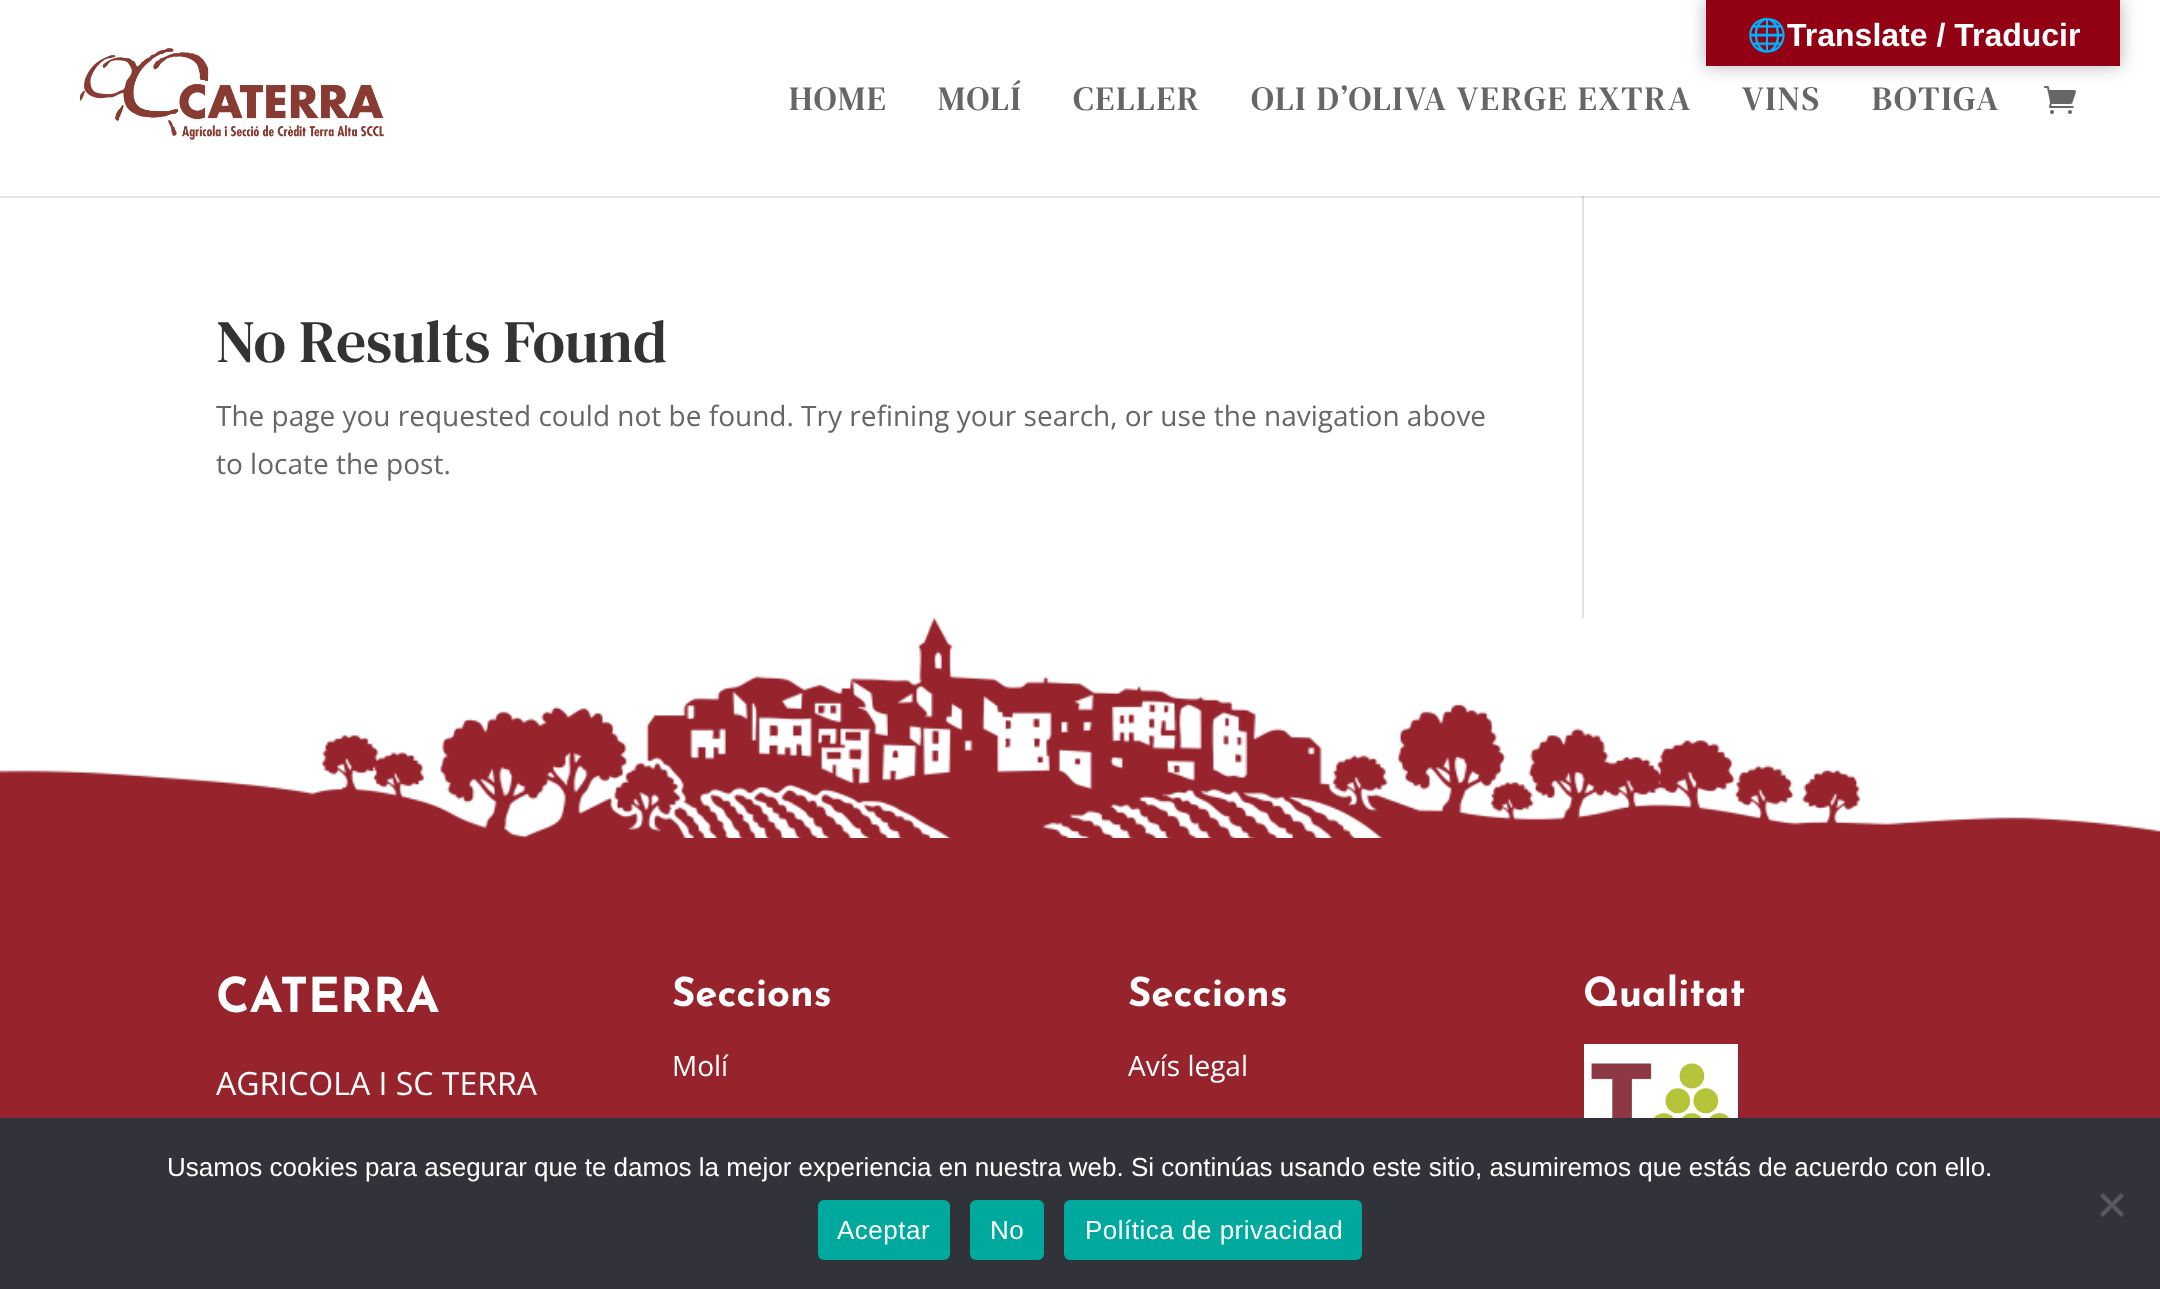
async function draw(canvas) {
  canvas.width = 2160;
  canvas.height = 1289;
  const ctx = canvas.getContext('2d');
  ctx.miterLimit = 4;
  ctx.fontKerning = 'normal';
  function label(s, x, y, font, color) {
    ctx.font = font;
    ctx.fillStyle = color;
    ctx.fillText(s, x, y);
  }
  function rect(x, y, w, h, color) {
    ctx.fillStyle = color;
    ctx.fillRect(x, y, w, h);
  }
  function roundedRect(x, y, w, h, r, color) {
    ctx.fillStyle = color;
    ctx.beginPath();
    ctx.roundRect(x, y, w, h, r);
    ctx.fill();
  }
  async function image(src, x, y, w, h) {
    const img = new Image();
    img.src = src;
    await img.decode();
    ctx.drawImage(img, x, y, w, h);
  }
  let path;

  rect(0, 0, 2160, 1289, '#fff');
  rect(0, 196, 2160, 2, '#e6e6e6');
  await image('assets/img2.png', 2044, 86, 32, 28);
  ctx.fillStyle = '#0000004d';
  ctx.filter = 'blur(9px)';
  ctx.beginPath();
  ctx.rect(1706, 0, 414, 66);
  ctx.fill();
  ctx.filter = 'none';
  rect(1706, 0, 414, 66, '#910013');
  label('🌐', 1747, 46, 'bold 32px Noto Color Emoji', '#fff');
  label('Translate / Traducir', 1787, 46, 'bold 32px Liberation Sans', '#fff');
  await image('assets/img1.png', 79, 48, 305, 92);
  ctx.letterSpacing = '2px';
  label('HOME', 789, 110, '34px DM Serif Text', '#666');
  label('MOLÍ', 938, 110, '34px DM Serif Text', '#666');
  label('CELLER', 1073, 110, '34px DM Serif Text', '#666');
  label('OLI D’OLIVA VERGE EXTRA', 1251, 110, '34px DM Serif Text', '#666');
  label('VINS', 1742, 110, '34px DM Serif Text', '#666');
  label('BOTIGA', 1872, 110, '34px DM Serif Text', '#666');
  ctx.letterSpacing = '0px';
  label('No Results Found', 216, 362, '60px DM Serif Text', '#333');
  label('The page you requested could not be found. Try refining your search, or use the navigation above', 216, 426, '28px Open Sans', '#666');
  label('to locate the post.', 216, 474, '28px Open Sans', '#666');
  rect(1582, 196, 2, 422, '#e2e2e2');
  rect(1582, 196, 2, 2, '#cbcbcb');
  await image('assets/img3.png', 0, 618, 2160, 220);
  rect(0, 838, 2160, 280, '#97232d');
  label('CATERRA', 216, 1012, 'bold 48px Josefin Sans', '#fff');
  label('AGRICOLA I SC TERRA', 216, 1095, '32px Open Sans', '#fff');
  label('Seccions', 672, 1006, 'bold 40px Josefin Sans', '#fff');
  label('Molí', 672, 1076, '28px Open Sans', '#fff');
  label('Seccions', 1128, 1006, 'bold 40px Josefin Sans', '#fff');
  label('Avís legal', 1128, 1076, '28px Open Sans', '#fff');
  label('Qualitat', 1583, 1006, 'bold 40px Josefin Sans', '#fff');
  await image('assets/img4.png', 1584, 1044, 154, 74);
  rect(0, 1118, 2160, 171, '#32323a');
  label('Usamos cookies para asegurar que te damos la mejor experiencia en nuestra web. Si continúas usando este sitio, asumiremos que estás de acuerdo con ello.', 167, 1176, '26px Liberation Sans', '#fff');
  ctx.fillStyle = '#59595d';
  path = new Path2D('M2121 1193L2124 1196L2103 1217L2100 1214Z');
  ctx.fill(path);
  path = new Path2D('M2100 1196L2103 1193L2124 1214L2121 1217Z');
  ctx.fill(path);
  roundedRect(818, 1200, 132, 60, 6, '#00a99d');
  ctx.letterSpacing = '0.5px';
  label('Aceptar', 837, 1239, '26px Liberation Sans', '#fff');
  roundedRect(970, 1200, 74, 60, 6, '#00a99d');
  label('No', 990, 1239, '26px Liberation Sans', '#fff');
  roundedRect(1064, 1200, 298, 60, 6, '#00a99d');
  label('Política de privacidad', 1085, 1239, '26px Liberation Sans', '#fff');
}

draw(document.querySelector('canvas'));
